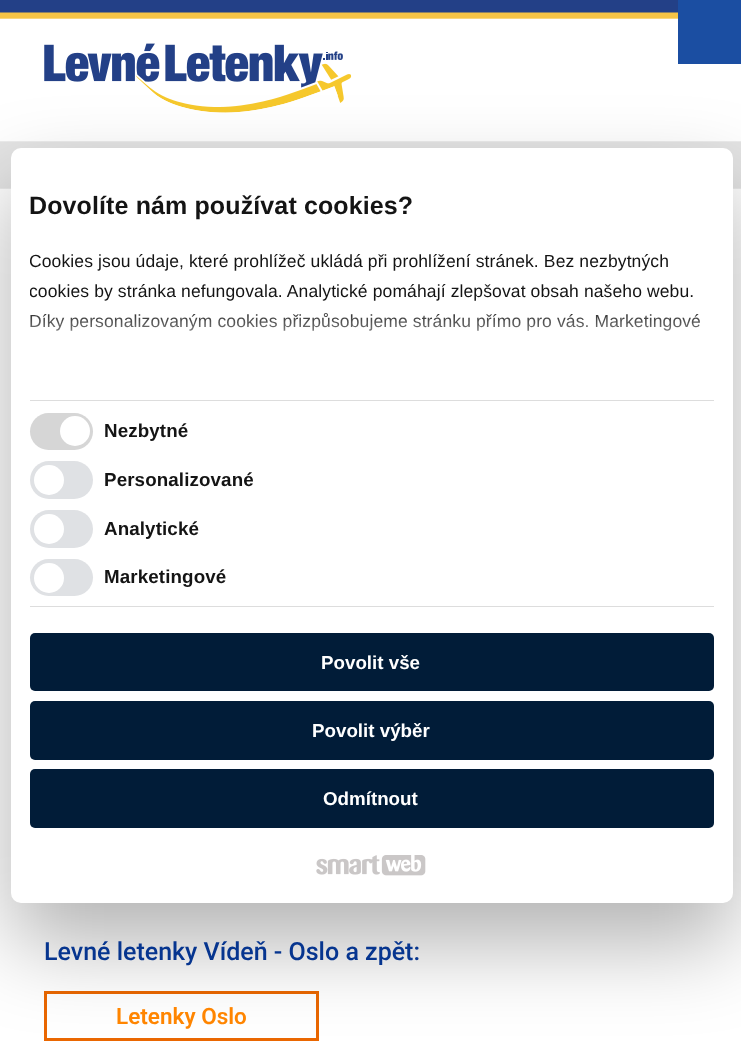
async function draw(canvas) {
  canvas.width = 741;
  canvas.height = 1048;
  const ctx = canvas.getContext('2d');
  ctx.miterLimit = 4;
  ctx.fontKerning = 'normal';
  function label(s, x, y, font, color) {
    ctx.font = font;
    ctx.fillStyle = color;
    ctx.fillText(s, x, y);
  }
  function rect(x, y, w, h, color) {
    ctx.fillStyle = color;
    ctx.fillRect(x, y, w, h);
  }
  function roundedRect(x, y, w, h, r, color) {
    ctx.fillStyle = color;
    ctx.beginPath();
    ctx.roundRect(x, y, w, h, r);
    ctx.fill();
  }
  async function image(src, x, y, w, h) {
    const img = new Image();
    img.src = src;
    await img.decode();
    ctx.drawImage(img, x, y, w, h);
  }
  let gradient;

  rect(0, 0, 741, 1048, '#fff');
  await image('assets/img1.png', 0, 0, 741, 189);
  rect(678, 0, 63, 64, '#1b4ea2');
  await image('assets/img2.png', 44, 43, 308, 70);
  ctx.strokeStyle = '#ea6701';
  ctx.lineWidth = 3;
  ctx.strokeRect(45.5, 992.5, 272, 47);
  ctx.fillStyle = '#0000004d';
  ctx.filter = 'blur(42.5px)';
  ctx.beginPath();
  ctx.roundRect(11, 188, 722, 755, 10);
  ctx.fill();
  ctx.filter = 'none';
  roundedRect(11, 148, 722, 755, 10, '#fff');
  ctx.letterSpacing = '0.12px';
  label('Dovolíte nám používat cookies?', 29, 214, 'bold 25px Liberation Sans', '#141414');
  ctx.save();
  ctx.beginPath();
  ctx.rect(30, 191, 684, 209);
  ctx.clip();
  label('Cookies jsou údaje, které prohlížeč ukládá při prohlížení stránek. Bez nezbytných', 29, 267, '17.5px Liberation Sans', '#141414');
  label('cookies by stránka nefungovala. Analytické pomáhají zlepšovat obsah našeho webu.', 29, 297, '17.5px Liberation Sans', '#141414');
  ctx.restore();
  label('Díky personalizovaným cookies přizpůsobujeme stránku přímo pro vás. Marketingové', 29, 327, '17.5px Liberation Sans', '#141414');
  gradient = ctx.createLinearGradient(371, 400, 371, 306);
  gradient.addColorStop(0, '#fff');
  gradient.addColorStop(0.5, '#ffffffcc');
  gradient.addColorStop(1, '#ffffff00');
  ctx.fillStyle = gradient;
  ctx.fillRect(30, 313, 671, 18);
  rect(30, 400, 684, 1, '#ddd');
  rect(30, 606, 684, 1, '#ddd');
  roundedRect(30, 413, 63, 37, 18.5, '#d6d6d6');
  ctx.fillStyle = '#fff';
  ctx.beginPath();
  ctx.arc(75, 431, 15, 0, 2 * Math.PI);
  ctx.fill();
  label('Nezbytné', 104, 437, 'bold 18.75px Liberation Sans', '#141414');
  roundedRect(30, 461, 63, 38, 19, '#dfe1e4');
  ctx.fillStyle = '#fff';
  ctx.beginPath();
  ctx.arc(49, 480, 15, 0, 2 * Math.PI);
  ctx.fill();
  label('Personalizované', 104, 486, 'bold 18.75px Liberation Sans', '#141414');
  roundedRect(30, 510, 63, 38, 19, '#dfe1e4');
  ctx.fillStyle = '#fff';
  ctx.beginPath();
  ctx.arc(49, 529, 15, 0, 2 * Math.PI);
  ctx.fill();
  label('Analytické', 104, 535, 'bold 18.75px Liberation Sans', '#141414');
  roundedRect(30, 559, 63, 37, 18.5, '#dfe1e4');
  ctx.fillStyle = '#fff';
  ctx.beginPath();
  ctx.arc(49, 578, 15, 0, 2 * Math.PI);
  ctx.fill();
  label('Marketingové', 104, 583, 'bold 18.75px Liberation Sans', '#141414');
  roundedRect(30, 633, 684, 58, 5, '#011c38');
  ctx.letterSpacing = '0px';
  label('Povolit vše', 321, 669, 'bold 18.75px Liberation Sans', '#fff');
  roundedRect(30, 701, 684, 59, 5, '#011c38');
  label('Povolit výběr', 312, 737, 'bold 18.75px Liberation Sans', '#fff');
  roundedRect(30, 769, 684, 59, 5, '#011c38');
  label('Odmítnout', 323, 805, 'bold 18.75px Liberation Sans', '#fff');
  await image('assets/img3.png', 316, 855, 64, 20);
  await image('assets/img4.png', 381, 855, 45, 21);
  label('Levné letenky Vídeň - Oslo a zpět:', 44, 960, '500 25px Roboto', '#06358f');
  label('Letenky Oslo', 116, 1024, '600 22.5px Roboto', '#ff8500');
}

draw(document.querySelector('canvas'));
